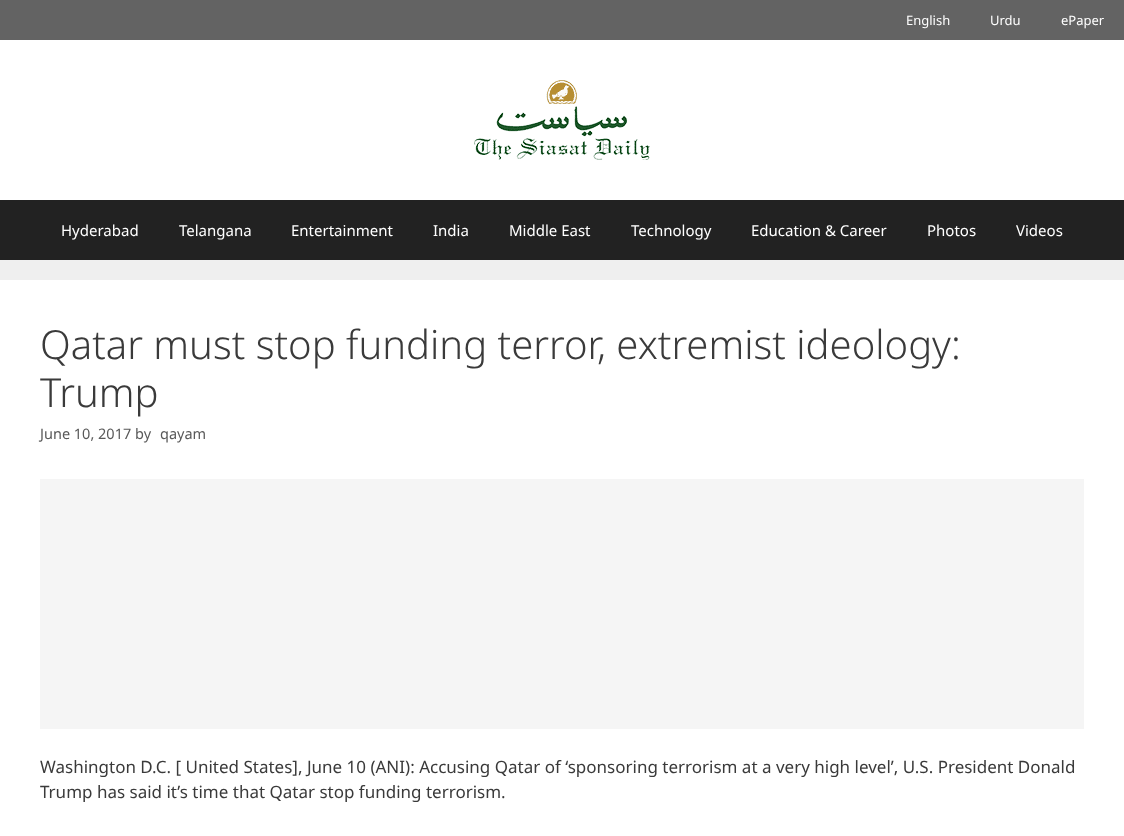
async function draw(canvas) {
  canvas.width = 1124;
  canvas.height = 836;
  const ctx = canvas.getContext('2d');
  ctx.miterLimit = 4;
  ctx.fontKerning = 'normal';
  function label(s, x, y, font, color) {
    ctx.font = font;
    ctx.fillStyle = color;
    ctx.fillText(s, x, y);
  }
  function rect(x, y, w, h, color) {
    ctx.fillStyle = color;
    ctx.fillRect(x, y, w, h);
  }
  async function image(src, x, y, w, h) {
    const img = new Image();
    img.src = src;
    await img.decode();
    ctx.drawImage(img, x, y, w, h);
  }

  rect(0, 0, 1124, 836, '#efefef');
  rect(0, 0, 1124, 40, '#636363');
  label('English', 906, 25, '13px Noto Sans', '#fff');
  label('Urdu', 990, 25, '13px Noto Sans', '#fff');
  label('ePaper', 1061, 25, '13px Noto Sans', '#fff');
  rect(0, 40, 1124, 160, '#fff');
  await image('assets/img1.png', 474, 80, 176, 80);
  rect(0, 200, 1124, 60, '#222');
  label('Hyderabad', 61, 236, '15px Noto Sans', '#fff');
  label('Telangana', 179, 236, '15px Noto Sans', '#fff');
  label('Entertainment', 291, 236, '15px Noto Sans', '#fff');
  label('India', 433, 236, '15px Noto Sans', '#fff');
  label('Middle East', 509, 236, '15px Noto Sans', '#fff');
  label('Technology', 631, 236, '15px Noto Sans', '#fff');
  label('Education & Career', 751, 236, '15px Noto Sans', '#fff');
  label('Photos', 927, 236, '15px Noto Sans', '#fff');
  label('Videos', 1016, 236, '15px Noto Sans', '#fff');
  rect(0, 280, 1124, 556, '#fff');
  label('Qatar must stop funding terror, extremist ideology:', 40, 359, '300 40px Noto Sans', '#3a3a3a');
  label('Trump', 40, 407, '300 40px Noto Sans', '#3a3a3a');
  label('June 10, 2017 by', 40, 439, '14.5px Noto Sans', '#595959');
  label('qayam', 160, 439, '14.5px Noto Sans', '#595959');
  rect(40, 479, 1044, 250, '#f5f5f5');
  label('Washington D.C. [ United States], June 10 (ANI): Accusing Qatar of ‘sponsoring terrorism at a very high level’, U.S. President Donald', 40, 773, '17px Noto Sans', '#3a3a3a');
  label('Trump has said it’s time that Qatar stop funding terrorism.', 40, 798, '17px Noto Sans', '#3a3a3a');
}

draw(document.querySelector('canvas'));
